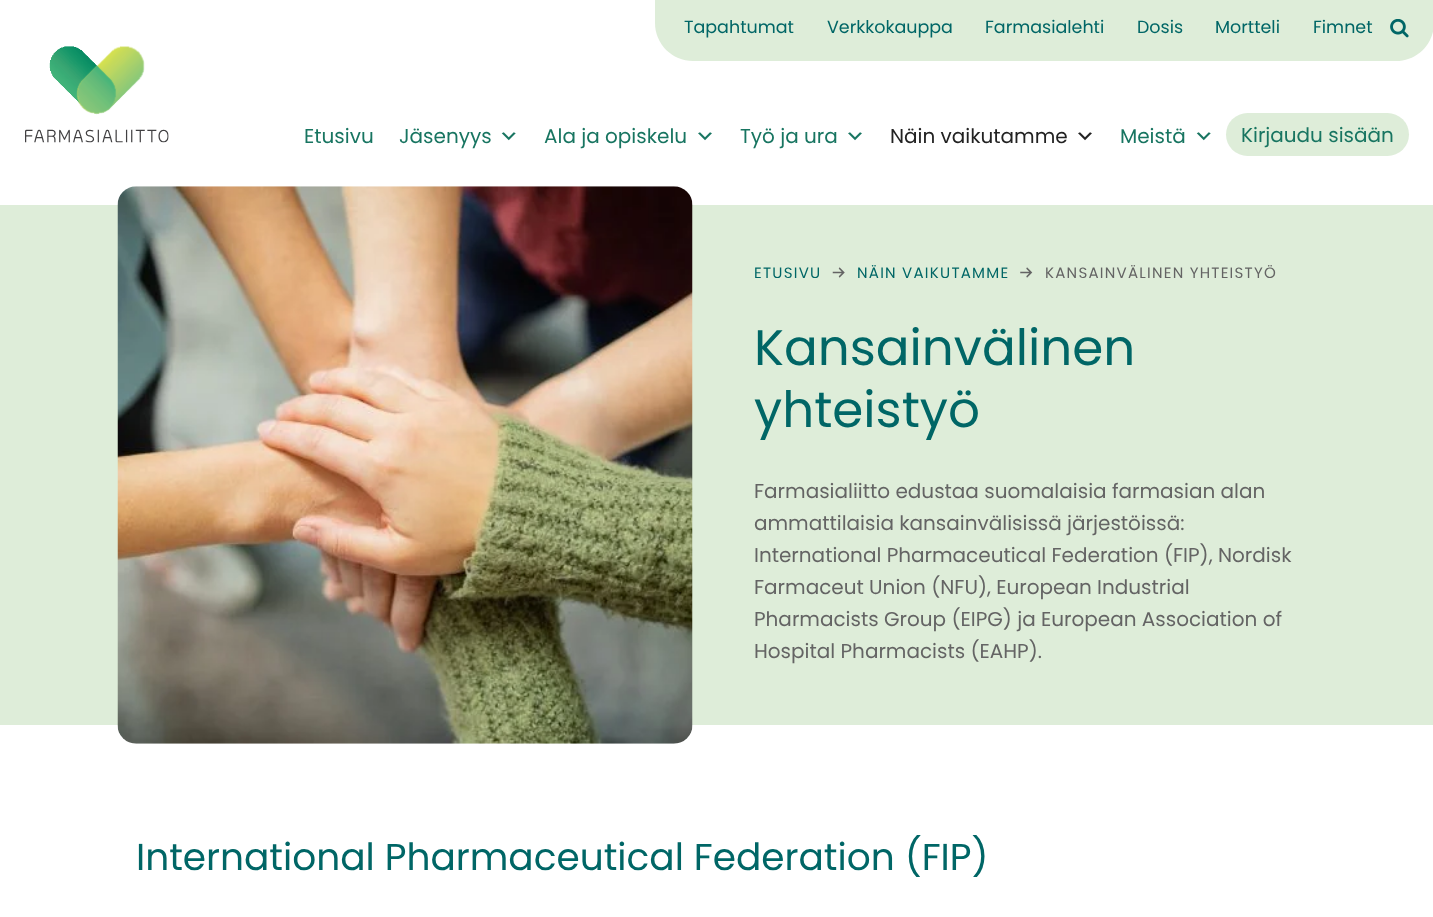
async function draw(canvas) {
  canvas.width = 1433;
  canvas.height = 917;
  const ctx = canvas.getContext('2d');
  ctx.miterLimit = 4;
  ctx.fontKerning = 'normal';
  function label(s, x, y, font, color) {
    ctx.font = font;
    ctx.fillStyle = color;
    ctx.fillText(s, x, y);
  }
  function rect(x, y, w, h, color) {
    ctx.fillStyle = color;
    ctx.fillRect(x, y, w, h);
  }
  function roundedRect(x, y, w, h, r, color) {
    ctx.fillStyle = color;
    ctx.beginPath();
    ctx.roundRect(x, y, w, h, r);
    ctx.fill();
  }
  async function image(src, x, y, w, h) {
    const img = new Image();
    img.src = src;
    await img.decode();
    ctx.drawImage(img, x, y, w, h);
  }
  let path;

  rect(0, 0, 1433, 917, '#fff');
  ctx.fillStyle = '#deedd9';
  path = new Path2D('M655 0H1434V23C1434 44 1417 61 1396 61H693C672 61 655 44 655 23Z');
  ctx.fill(path);
  label('Tapahtumat', 684, 33, '17.5px Poppins', '#066');
  label('Verkkokauppa', 827, 33, '17.5px Poppins', '#066');
  label('Farmasialehti', 985, 33, '17.5px Poppins', '#066');
  label('Dosis', 1137, 33, '17.5px Poppins', '#066');
  label('Mortteli', 1215, 33, '17.5px Poppins', '#066');
  label('Fimnet', 1313, 33, '17.5px Poppins', '#066');
  await image('assets/img1.png', 1390, 19, 19, 19);
  await image('assets/img2.png', 25, 46, 144, 97);
  label('Etusivu', 304, 143, '20px Poppins', '#187561');
  label('Jäsenyys', 399, 143, '20px Poppins', '#187561');
  await image('assets/img3.png', 501, 132, 15, 9);
  label('Ala ja opiskelu', 544, 143, '20px Poppins', '#187561');
  await image('assets/img4.png', 698, 132, 14, 9);
  label('Työ ja ura', 740, 143, '20px Poppins', '#187561');
  await image('assets/img4.png', 848, 132, 14, 9);
  label('Näin vaikutamme', 890, 143, '20px Poppins', '#222');
  await image('assets/img5.png', 1078, 132, 14, 9);
  label('Meistä', 1120, 143, '20px Poppins', '#187561');
  await image('assets/img3.png', 1196, 132, 15, 9);
  roundedRect(1226, 113, 183, 43, 21.5, '#deedd9');
  label('Kirjaudu sisään', 1241, 142, '20px Poppins', '#187561');
  rect(0, 205, 1433, 520, '#deedd9');
  await image('assets/img6.png', 117, 186, 576, 558);
  ctx.letterSpacing = '1.25px';
  label('ETUSIVU', 754, 278, '15px Poppins', '#066');
  await image('assets/img7.png', 832, 267, 13, 11);
  label('NÄIN VAIKUTAMME', 857, 278, '15px Poppins', '#066');
  await image('assets/img8.png', 1020, 267, 13, 11);
  label('KANSAINVÄLINEN YHTEISTYÖ', 1045, 278, '15px Poppins', '#646464');
  ctx.letterSpacing = '0px';
  label('Kansainvälinen', 754, 365, '50px Poppins', '#066');
  label('yhteistyö', 754, 427, '50px Poppins', '#066');
  label('Farmasialiitto edustaa suomalaisia farmasian alan', 754, 498, '20px Poppins', '#646464');
  label('ammattilaisia kansainvälisissä järjestöissä:', 754, 530, '20px Poppins', '#646464');
  label('International Pharmaceutical Federation (FIP), Nordisk', 754, 562, '20px Poppins', '#646464');
  label('Farmaceut Union (NFU), European Industrial', 754, 594, '20px Poppins', '#646464');
  label('Pharmacists Group (EIPG) ja European Association of', 754, 626, '20px Poppins', '#646464');
  label('Hospital Pharmacists (EAHP).', 754, 658, '20px Poppins', '#646464');
  label('International Pharmaceutical Federation (FIP)', 136, 870, '37.5px Poppins', '#066');
}

draw(document.querySelector('canvas'));
